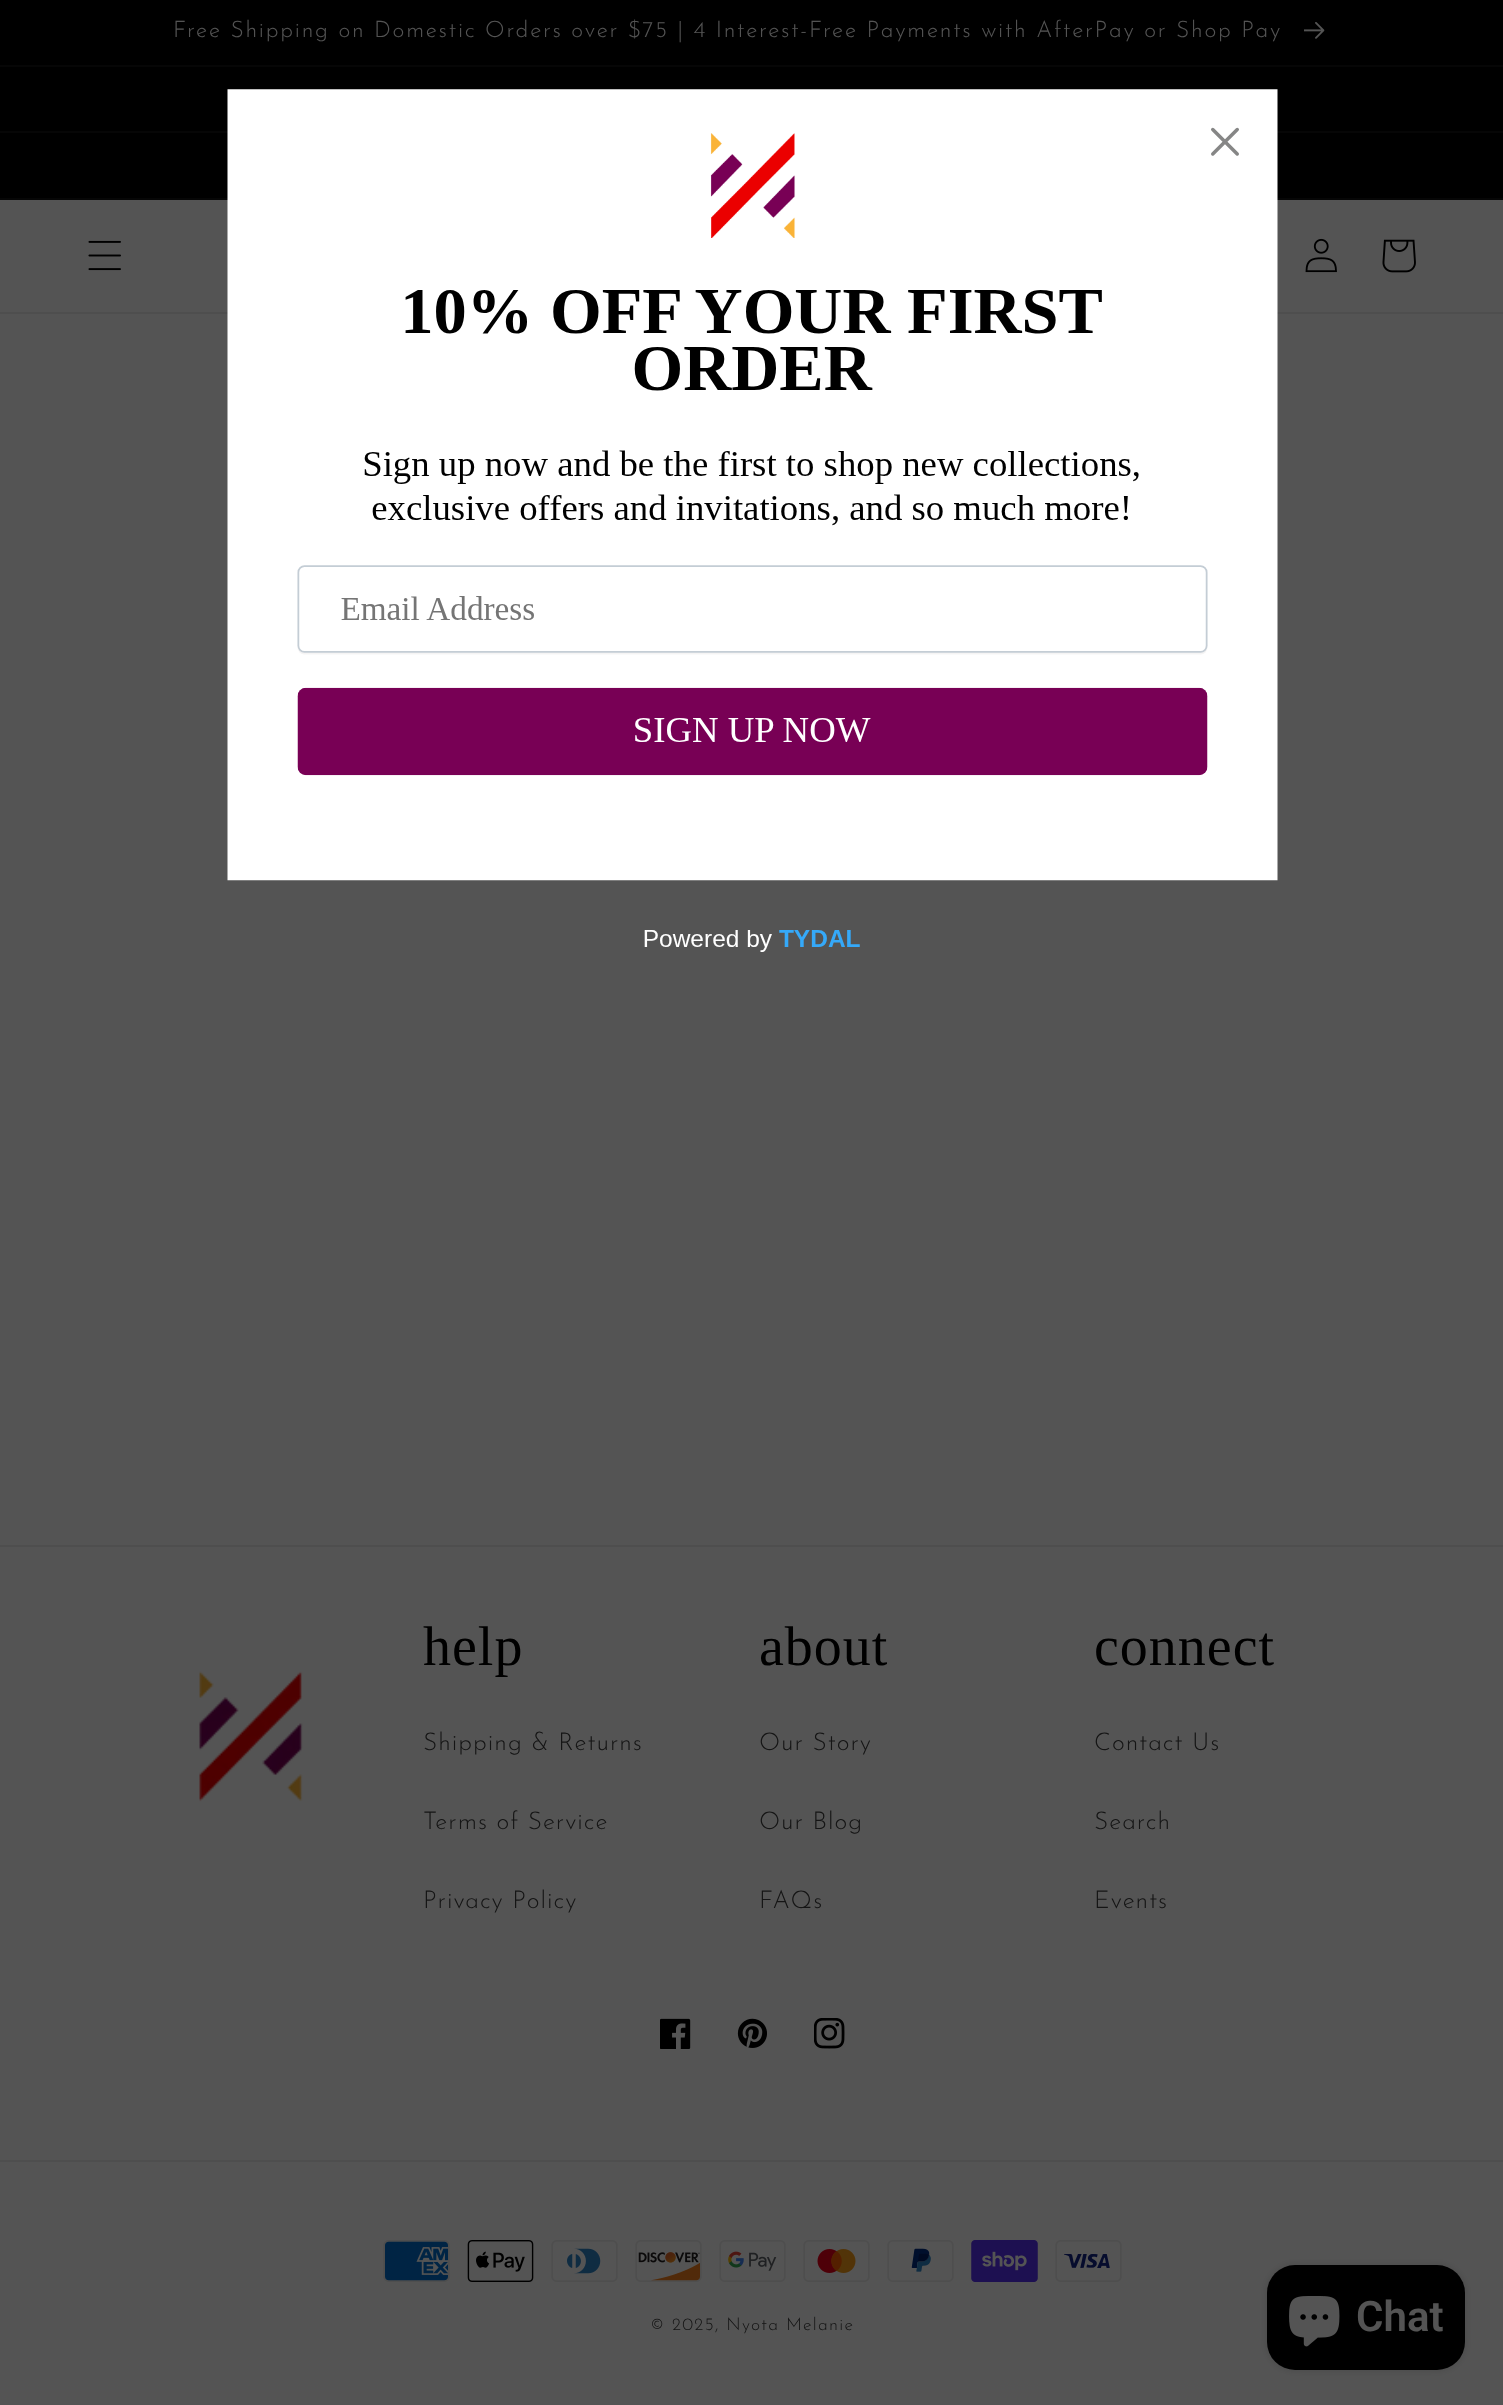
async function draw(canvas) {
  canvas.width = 1503;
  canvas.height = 2405;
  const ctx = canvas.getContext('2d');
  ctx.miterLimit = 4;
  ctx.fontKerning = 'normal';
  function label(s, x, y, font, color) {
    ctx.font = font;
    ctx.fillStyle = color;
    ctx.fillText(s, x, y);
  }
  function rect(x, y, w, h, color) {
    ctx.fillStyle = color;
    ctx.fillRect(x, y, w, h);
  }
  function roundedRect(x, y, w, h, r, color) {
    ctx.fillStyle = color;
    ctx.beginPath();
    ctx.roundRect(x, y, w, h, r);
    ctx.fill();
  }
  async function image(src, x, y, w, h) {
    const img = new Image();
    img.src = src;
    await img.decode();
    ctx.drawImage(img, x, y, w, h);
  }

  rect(0, 0, 1503, 2405, '#fff');
  rect(0, 0, 1503, 65, '#000');
  rect(0, 65, 1503, 2, '#141414');
  ctx.letterSpacing = '1.75px';
  label('Free Shipping on Domestic Orders over $75 | 4 Interest-Free Payments with AfterPay or Shop Pay', 173, 37, '300 22.75px Josefin Sans', '#fff');
  await image('assets/img2.png', 1304, 22, 21, 17);
  rect(0, 67, 1503, 64, '#000');
  rect(0, 131, 1503, 2, '#141414');
  rect(0, 133, 1503, 65, '#000');
  rect(0, 198, 1503, 2, '#141414');
  rect(0, 312, 1503, 2, '#ebebeb');
  await image('assets/img3.png', 88, 240, 33, 31);
  await image('assets/img4.png', 1305, 238, 32, 35);
  await image('assets/img5.png', 1382, 239, 34, 34);
  rect(0, 1545, 1503, 2, '#ebebeb');
  await image('assets/img6.png', 199, 1671, 104, 131);
  ctx.letterSpacing = '1px';
  label('help', 423, 1665, '56px Liberation Serif', '#000');
  label('Shipping & Returns', 423, 1750, '300 24.5px Josefin Sans', '#404040');
  label('Terms of Service', 423, 1829, '300 24.5px Josefin Sans', '#404040');
  label('Privacy Policy', 423, 1908, '300 24.5px Josefin Sans', '#404040');
  label('about', 759, 1665, '56px Liberation Serif', '#000');
  label('Our Story', 759, 1750, '300 24.5px Josefin Sans', '#404040');
  label('Our Blog', 759, 1829, '300 24.5px Josefin Sans', '#404040');
  label('FAQs', 759, 1908, '300 24.5px Josefin Sans', '#404040');
  label('connect', 1094, 1665, '56px Liberation Serif', '#000');
  label('Contact Us', 1094, 1750, '300 24.5px Josefin Sans', '#404040');
  label('Search', 1094, 1829, '300 24.5px Josefin Sans', '#404040');
  label('Events', 1094, 1908, '300 24.5px Josefin Sans', '#404040');
  await image('assets/img7.png', 660, 2018, 31, 31);
  await image('assets/img8.png', 737, 2018, 30, 30);
  await image('assets/img9.png', 814, 2018, 31, 31);
  rect(0, 2160, 1503, 2, '#ebebeb');
  await image('assets/img10.png', 383, 2240, 67, 42);
  await image('assets/img11.png', 467, 2240, 67, 42);
  await image('assets/img12.png', 551, 2240, 67, 42);
  await image('assets/img13.png', 635, 2240, 67, 42);
  await image('assets/img14.png', 719, 2240, 67, 42);
  await image('assets/img15.png', 803, 2240, 67, 42);
  await image('assets/img16.png', 887, 2240, 67, 42);
  await image('assets/img17.png', 971, 2240, 67, 42);
  await image('assets/img18.png', 1055, 2240, 67, 42);
  ctx.letterSpacing = '1.25px';
  label('© 2025, Nyota Melanie', 650, 2330, '300 17.5px Josefin Sans', '#404040');
  ctx.fillStyle = '#00000026';
  ctx.filter = 'blur(4.5px)';
  ctx.beginPath();
  ctx.roundRect(1267, 2265, 198, 105, 28);
  ctx.fill();
  ctx.filter = 'none';
  roundedRect(1267, 2265, 198, 105, 28, '#000');
  await image('assets/img19.png', 1289, 2296, 51, 51);
  ctx.letterSpacing = '0px';
  label('Chat', 1356, 2331, '600 42px Roboto', '#fff');
  await image('assets/img1.png', 0, 19, 1503, 2386);
}

draw(document.querySelector('canvas'));
